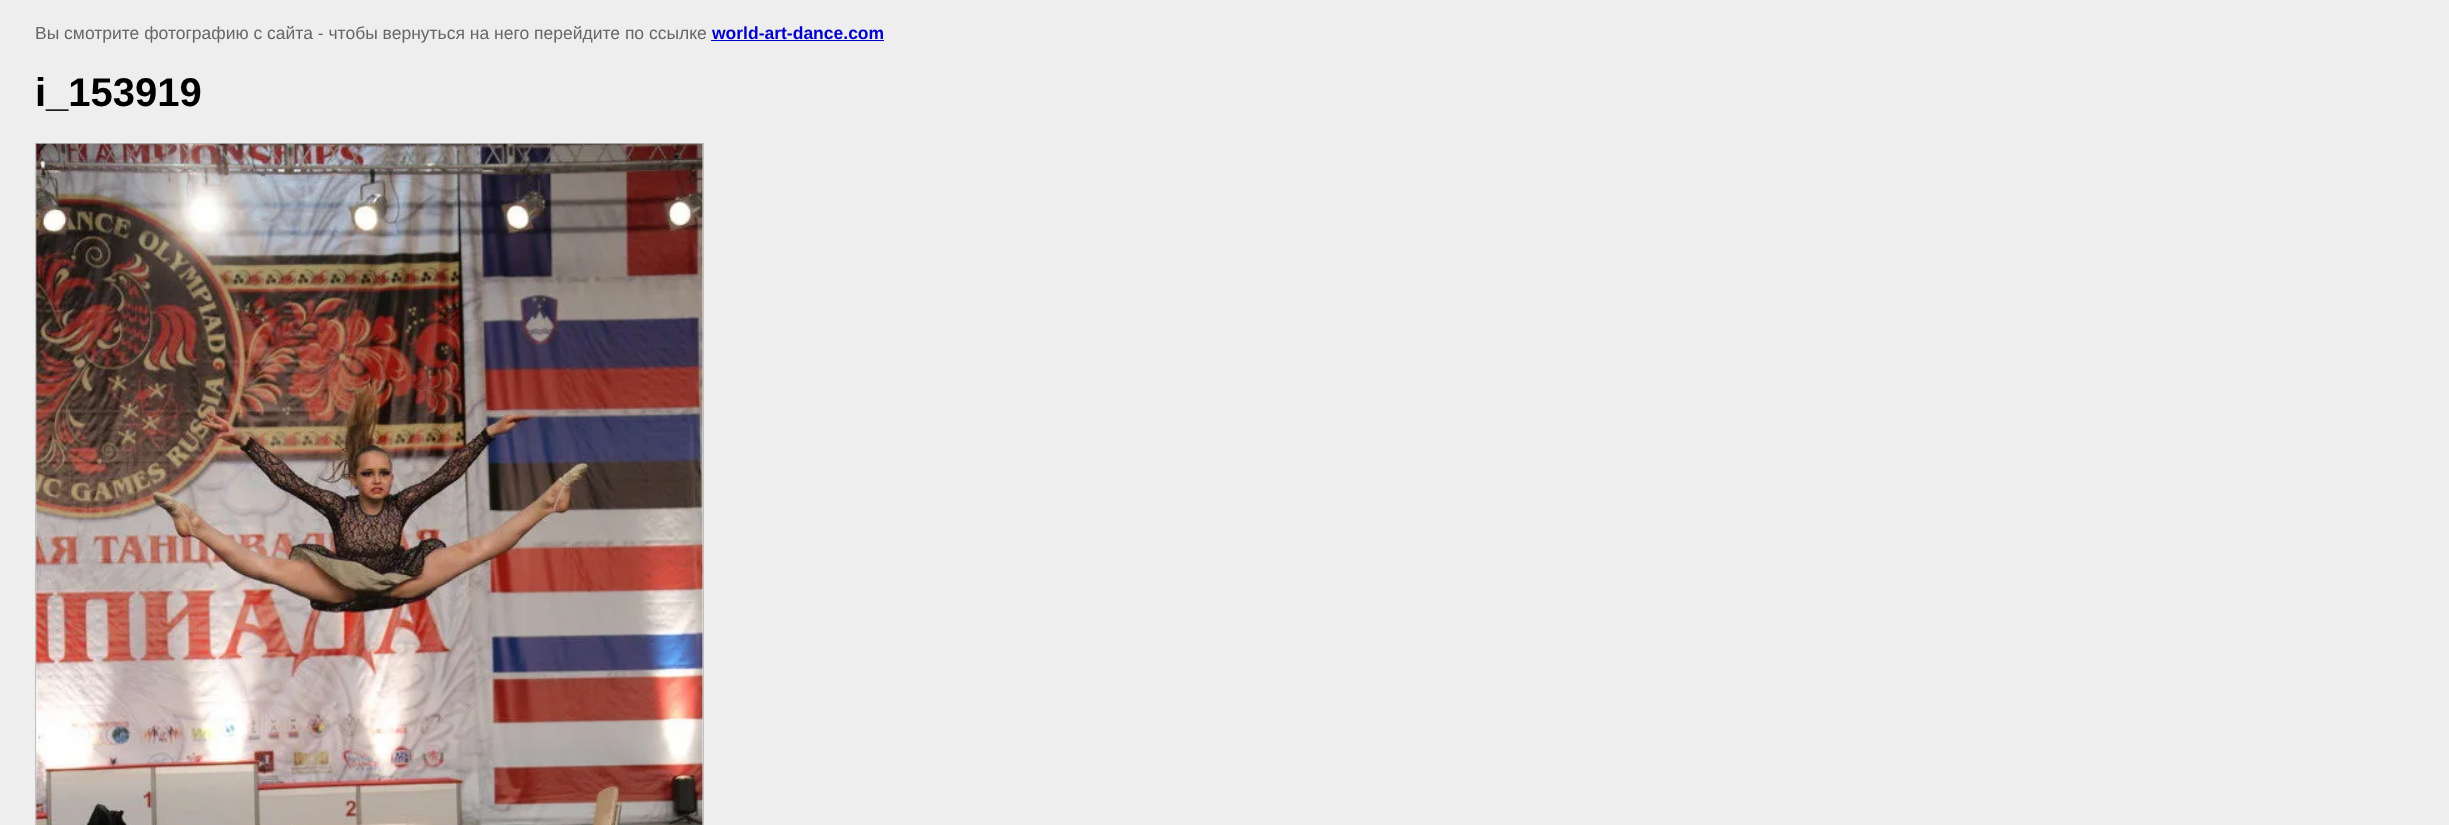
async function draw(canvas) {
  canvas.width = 2449;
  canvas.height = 825;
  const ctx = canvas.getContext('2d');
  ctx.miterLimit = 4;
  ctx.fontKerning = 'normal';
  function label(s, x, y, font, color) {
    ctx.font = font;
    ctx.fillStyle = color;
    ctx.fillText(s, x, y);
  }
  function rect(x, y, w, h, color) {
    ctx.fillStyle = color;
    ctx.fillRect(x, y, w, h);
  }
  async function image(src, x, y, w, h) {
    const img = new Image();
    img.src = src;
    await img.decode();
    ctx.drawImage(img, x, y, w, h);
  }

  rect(0, 0, 2449, 825, '#eee');
  label('Вы смотрите фотографию с сайта - чтобы вернуться на него перейдите по ссылке', 35, 39, '17.5px Liberation Sans', '#666');
  label('world-art-dance.com', 712, 39, 'bold 17.5px Liberation Sans', '#00c');
  rect(711, 40, 173, 1, '#00c');
  label('i_153919', 35, 106, 'bold 40px Liberation Sans', '#000');
  ctx.strokeStyle = '#c0c0c0';
  ctx.strokeRect(35.5, 143.5, 668, 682);
  await image('assets/img1.png', 36, 143, 667, 682);
}

draw(document.querySelector('canvas'));
